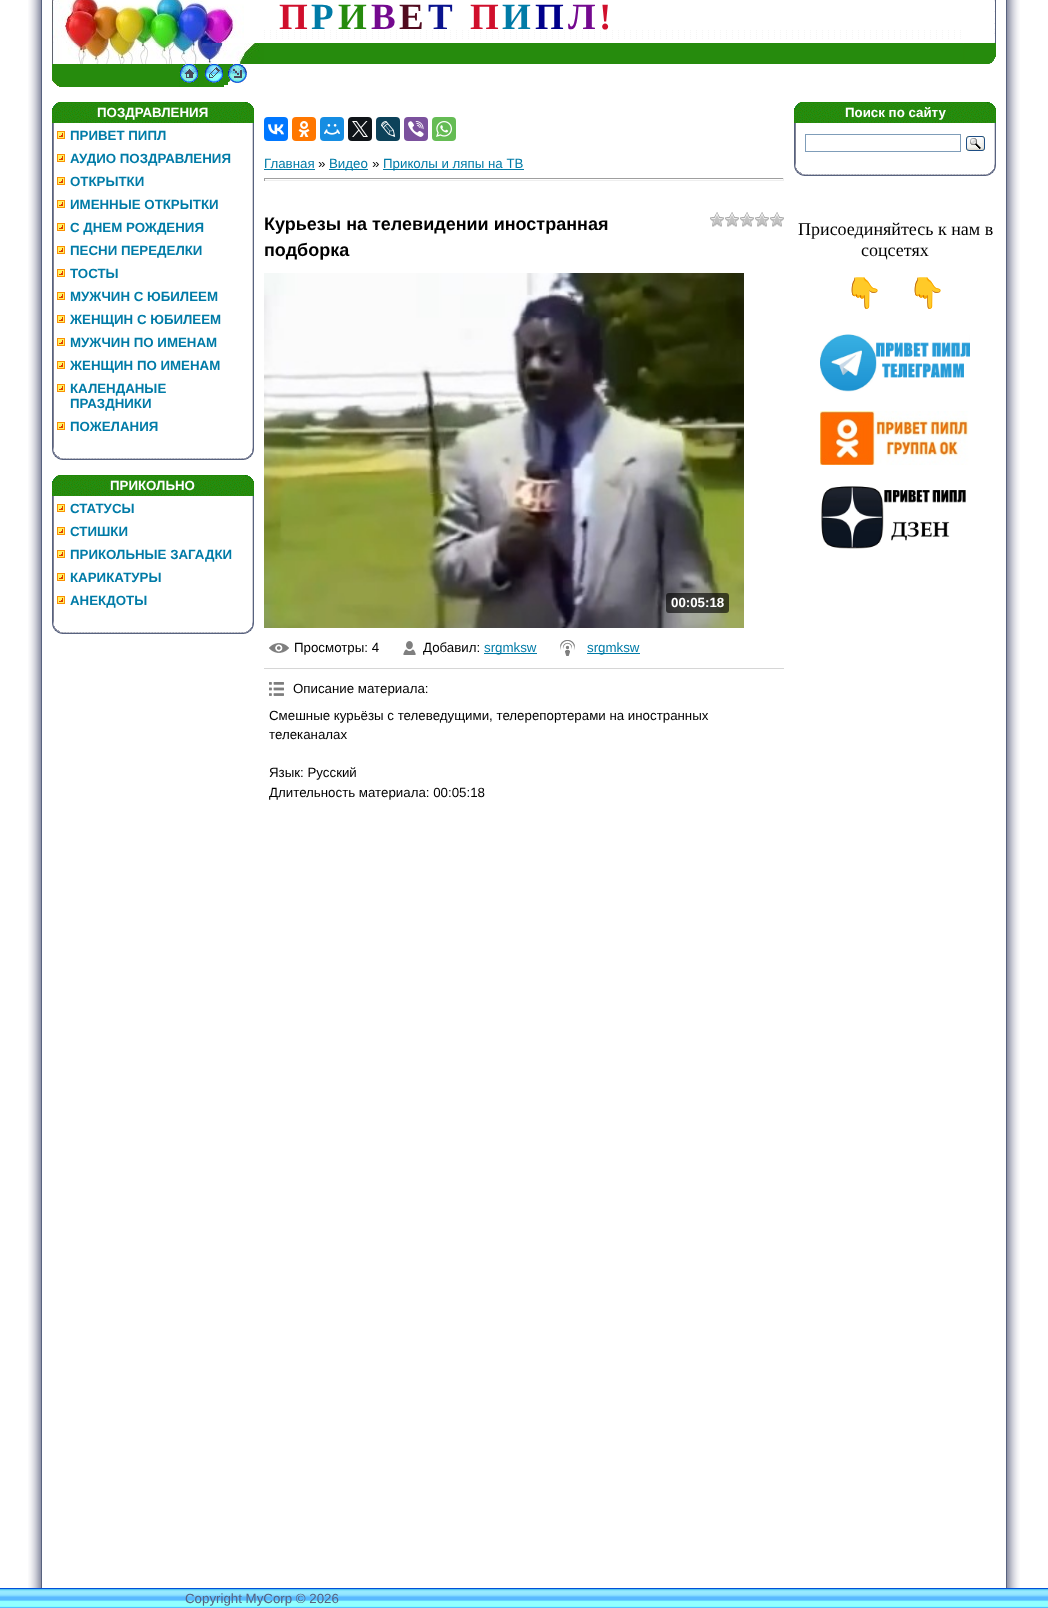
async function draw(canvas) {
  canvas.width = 1048;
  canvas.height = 1608;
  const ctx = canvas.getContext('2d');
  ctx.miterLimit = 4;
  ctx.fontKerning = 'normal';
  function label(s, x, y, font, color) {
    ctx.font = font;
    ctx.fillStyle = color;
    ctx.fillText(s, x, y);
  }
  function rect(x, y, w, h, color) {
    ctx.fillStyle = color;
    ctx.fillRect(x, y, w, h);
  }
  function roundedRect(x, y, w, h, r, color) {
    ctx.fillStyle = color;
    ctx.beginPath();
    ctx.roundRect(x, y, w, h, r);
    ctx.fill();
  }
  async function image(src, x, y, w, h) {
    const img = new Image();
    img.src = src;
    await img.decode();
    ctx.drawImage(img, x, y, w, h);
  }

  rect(0, 0, 1048, 1608, '#fff');
  await image('assets/img1.png', 28, 0, 14, 1588);
  await image('assets/img2.png', 52, 0, 192, 43);
  await image('assets/img3.png', 264, 30, 697, 9);
  label('П', 279, 29, 'bold 37px Liberation Serif', '#d00f2c');
  label('Р', 311, 29, 'bold 37px Liberation Serif', '#007ba7');
  label('И', 338, 29, 'bold 37px Liberation Serif', '#268b0d');
  label('В', 371, 29, 'bold 37px Liberation Serif', '#74098f');
  label('Е', 399, 29, 'bold 37px Liberation Serif', '#510b1f');
  label('Т', 428, 29, 'bold 37px Liberation Serif', '#0a138e');
  label('П', 470, 29, 'bold 37px Liberation Serif', '#d00f2c');
  label('И', 502, 29, 'bold 37px Liberation Serif', '#007ba7');
  label('П', 535, 29, 'bold 37px Liberation Serif', '#00008b');
  label('Л', 568, 29, 'bold 37px Liberation Serif', '#74098f');
  label('!', 599, 29, 'bold 37px Liberation Serif', '#d00f2c');
  await image('assets/img4.png', 994, 0, 2, 43);
  await image('assets/img5.png', 52, 43, 212, 21);
  rect(264, 43, 699, 21, '#268b0d');
  await image('assets/img6.png', 963, 43, 33, 21);
  await image('assets/img7.png', 52, 64, 127, 23);
  await image('assets/img8.png', 179, 64, 20, 23);
  rect(199, 64, 5, 23, '#268b0d');
  await image('assets/img9.png', 204, 64, 20, 23);
  rect(224, 64, 4, 21, '#268b0d');
  await image('assets/img10.png', 228, 64, 19, 19);
  await image('assets/img11.png', 52, 102, 202, 21);
  label('ПОЗДРАВЛЕНИЯ', 97, 117, 'bold 13.3px Liberation Sans', '#fff');
  await image('assets/img12.png', 52, 123, 202, 324);
  await image('assets/img13.png', 57, 131, 8, 8);
  label('ПРИВЕТ ПИПЛ', 70, 140, 'bold 13.3px Liberation Sans', '#007ba7');
  await image('assets/img13.png', 57, 154, 8, 8);
  label('АУДИО ПОЗДРАВЛЕНИЯ', 70, 163, 'bold 13.3px Liberation Sans', '#007ba7');
  await image('assets/img13.png', 57, 177, 8, 8);
  label('ОТКРЫТКИ', 70, 186, 'bold 13.3px Liberation Sans', '#007ba7');
  await image('assets/img13.png', 57, 200, 8, 8);
  label('ИМЕННЫЕ ОТКРЫТКИ', 70, 209, 'bold 13.3px Liberation Sans', '#007ba7');
  await image('assets/img13.png', 57, 223, 8, 8);
  label('С ДНЕМ РОЖДЕНИЯ', 70, 232, 'bold 13.3px Liberation Sans', '#007ba7');
  await image('assets/img13.png', 57, 246, 8, 8);
  label('ПЕСНИ ПЕРЕДЕЛКИ', 70, 255, 'bold 13.3px Liberation Sans', '#007ba7');
  await image('assets/img13.png', 57, 269, 8, 8);
  label('ТОСТЫ', 70, 278, 'bold 13.3px Liberation Sans', '#007ba7');
  await image('assets/img13.png', 57, 292, 8, 8);
  label('МУЖЧИН С ЮБИЛЕЕМ', 70, 301, 'bold 13.3px Liberation Sans', '#007ba7');
  await image('assets/img13.png', 57, 315, 8, 8);
  label('ЖЕНЩИН С ЮБИЛЕЕМ', 70, 324, 'bold 13.3px Liberation Sans', '#007ba7');
  await image('assets/img13.png', 57, 338, 8, 8);
  label('МУЖЧИН ПО ИМЕНАМ', 70, 347, 'bold 13.3px Liberation Sans', '#007ba7');
  await image('assets/img13.png', 57, 361, 8, 8);
  label('ЖЕНЩИН ПО ИМЕНАМ', 70, 370, 'bold 13.3px Liberation Sans', '#007ba7');
  await image('assets/img13.png', 57, 384, 8, 8);
  label('КАЛЕНДАНЫЕ', 70, 393, 'bold 13.3px Liberation Sans', '#007ba7');
  label('ПРАЗДНИКИ', 70, 408, 'bold 13.3px Liberation Sans', '#007ba7');
  await image('assets/img13.png', 57, 422, 8, 8);
  label('ПОЖЕЛАНИЯ', 70, 431, 'bold 13.3px Liberation Sans', '#007ba7');
  await image('assets/img14.png', 52, 447, 202, 13);
  await image('assets/img11.png', 52, 475, 202, 21);
  label('ПРИКОЛЬНО', 110, 490, 'bold 13.3px Liberation Sans', '#fff');
  await image('assets/img15.png', 52, 496, 202, 125);
  await image('assets/img13.png', 57, 504, 8, 8);
  label('СТАТУСЫ', 70, 513, 'bold 13.3px Liberation Sans', '#007ba7');
  await image('assets/img13.png', 57, 527, 8, 8);
  label('СТИШКИ', 70, 536, 'bold 13.3px Liberation Sans', '#007ba7');
  await image('assets/img13.png', 57, 550, 8, 8);
  label('ПРИКОЛЬНЫЕ ЗАГАДКИ', 70, 559, 'bold 13.3px Liberation Sans', '#007ba7');
  await image('assets/img13.png', 57, 573, 8, 8);
  label('КАРИКАТУРЫ', 70, 582, 'bold 13.3px Liberation Sans', '#007ba7');
  await image('assets/img13.png', 57, 596, 8, 8);
  label('АНЕКДОТЫ', 70, 605, 'bold 13.3px Liberation Sans', '#007ba7');
  await image('assets/img14.png', 52, 621, 202, 13);
  roundedRect(264, 117, 24, 24, 4, '#07f');
  await image('assets/img16.png', 268, 124, 16, 11);
  roundedRect(292, 117, 24, 24, 4, '#f70');
  await image('assets/img17.png', 298, 121, 12, 16);
  roundedRect(320, 117, 24, 24, 4, '#168de2');
  await image('assets/img18.png', 324, 124, 16, 11);
  roundedRect(348, 117, 24, 24, 4, '#0f1419');
  await image('assets/img19.png', 352, 121, 16, 16);
  roundedRect(376, 117, 24, 24, 4, '#0d425a');
  await image('assets/img20.png', 381, 121, 15, 16);
  roundedRect(404, 117, 24, 24, 4, '#7b519d');
  await image('assets/img21.png', 408, 121, 16, 16);
  roundedRect(432, 117, 24, 24, 4, '#65bc54');
  await image('assets/img22.png', 436, 121, 16, 16);
  label('Главная', 264, 168, '13.3px Liberation Sans', '#007ba7');
  rect(264, 169, 51, 1, '#007ba7');
  label('»', 318, 168, '13.3px Liberation Sans', '#000');
  rect(329, 169, 39, 1, '#007ba7');
  label('Видео', 329, 168, '13.3px Liberation Sans', '#007ba7');
  label('»', 372, 168, '13.3px Liberation Sans', '#000');
  rect(383, 169, 141, 1, '#007ba7');
  label('Приколы и ляпы на ТВ', 383, 168, '13.3px Liberation Sans', '#007ba7');
  rect(264, 178, 520, 1, '#9f9f9f');
  rect(783, 178, 1, 3, '#eee');
  rect(264, 180, 520, 1, '#eee');
  rect(264, 178, 1, 3, '#9f9f9f');
  label('Курьезы на телевидении иностранная', 264, 230, 'bold 18px Liberation Sans', '#000');
  label('подборка', 264, 256, 'bold 18px Liberation Sans', '#000');
  await image('assets/img23.png', 710, 212, 74, 15);
  await image('assets/img24.png', 264, 273, 480, 355);
  roundedRect(666, 593, 63, 20, 3, '#000000a1');
  label('00:05:18', 671, 607, 'bold 13.3px Liberation Sans', '#fff');
  await image('assets/img25.png', 269, 643, 20, 10);
  label('Просмотры: 4', 294, 652, '13.3px Liberation Sans', '#000');
  await image('assets/img26.png', 403, 641, 13, 14);
  label('Добавил:', 423, 652, '13.3px Liberation Sans', '#000');
  rect(484, 653, 53, 1, '#007ba7');
  label('srgmksw', 484, 652, '13.3px Liberation Sans', '#007ba7');
  await image('assets/img27.png', 560, 640, 15, 16);
  rect(587, 653, 53, 1, '#007ba7');
  label('srgmksw', 587, 652, '13.3px Liberation Sans', '#007ba7');
  rect(264, 668, 520, 1, '#d6d6d6');
  await image('assets/img28.png', 269, 682, 15, 14);
  label('Описание материала:', 293, 693, '13.3px Liberation Sans', '#000');
  label('Смешные курьёзы с телеведущими, телерепортерами на иностранных', 269, 720, '13.3px Liberation Sans', '#000');
  label('телеканалах', 269, 739, '13.3px Liberation Sans', '#000');
  label('Язык: Русский', 269, 777, '13.3px Liberation Sans', '#000');
  label('Длительность материала: 00:05:18', 269, 797, '13.3px Liberation Sans', '#000');
  await image('assets/img11.png', 794, 102, 202, 21);
  label('Поиск по сайту', 845, 117, 'bold 13.3px Liberation Sans', '#fff');
  await image('assets/img29.png', 794, 123, 202, 40);
  ctx.strokeStyle = '#7f9db9';
  ctx.strokeRect(805.5, 134.5, 155, 17);
  await image('assets/img30.png', 966, 136, 19, 15);
  await image('assets/img14.png', 794, 163, 202, 13);
  label('Присоединяйтесь к нам в', 798, 235, '18px Liberation Serif', '#000');
  label('соцсетях', 861, 256, '18px Liberation Serif', '#000');
  label('👇', 845, 303, '30px Noto Color Emoji', '#000');
  label('👇', 908, 303, '30px Noto Color Emoji', '#000');
  await image('assets/img31.png', 820, 334, 150, 58);
  await image('assets/img32.png', 820, 411, 149, 54);
  await image('assets/img33.png', 821, 486, 145, 63);
  await image('assets/img34.png', 1006, 0, 14, 1588);
  await image('assets/img35.png', 0, 1588, 1048, 20);
  label('Copyright MyCorp © 2026', 185, 1603, '13.3px Liberation Sans', '#57627f');
}

draw(document.querySelector('canvas'));
